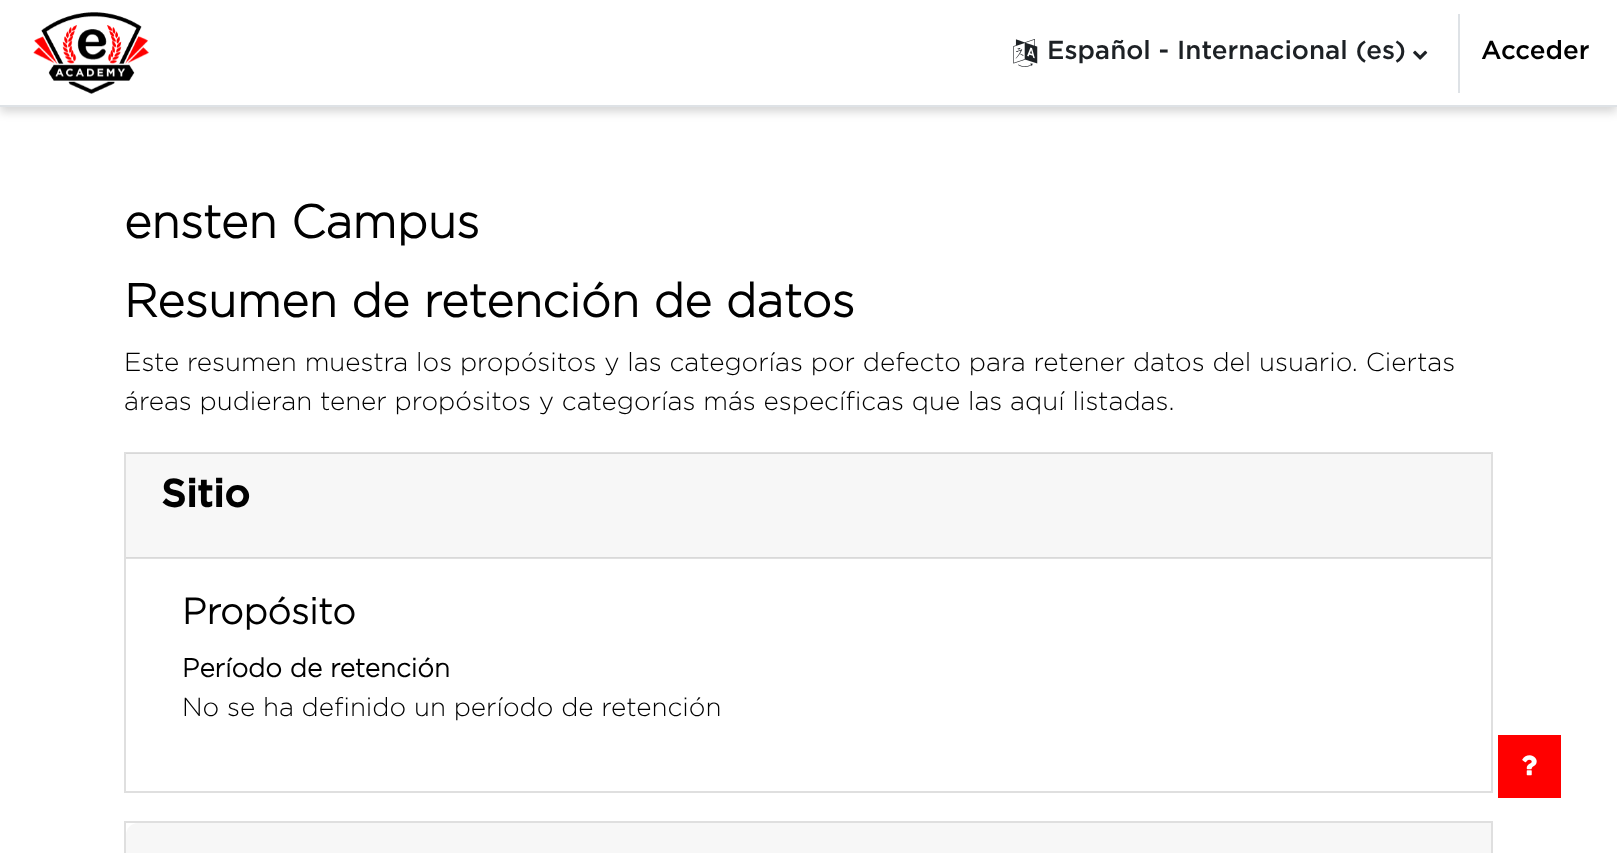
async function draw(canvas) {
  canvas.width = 1617;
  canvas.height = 853;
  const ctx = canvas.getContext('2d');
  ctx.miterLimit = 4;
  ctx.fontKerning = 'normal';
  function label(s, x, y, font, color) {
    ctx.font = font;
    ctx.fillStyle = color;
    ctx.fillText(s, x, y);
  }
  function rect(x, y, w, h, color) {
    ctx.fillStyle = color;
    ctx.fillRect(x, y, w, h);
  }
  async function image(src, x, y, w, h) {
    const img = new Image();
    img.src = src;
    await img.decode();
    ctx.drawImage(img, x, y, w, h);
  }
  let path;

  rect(0, 0, 1617, 853, '#fff');
  ctx.fillStyle = '#00000029';
  ctx.filter = 'blur(5px)';
  ctx.beginPath();
  ctx.rect(0, 5, 1617, 107);
  ctx.fill();
  ctx.filter = 'none';
  rect(0, 0, 1617, 105, '#fff');
  rect(0, 105, 1617, 2, '#dee2e6');
  await image('assets/img1.png', 33, 12, 116, 82);
  await image('assets/img2.png', 1013, 39, 25, 28);
  label('Español - Internacional (es)', 1047, 59, '500 26.03px Gotham', '#1d2125');
  await image('assets/img3.png', 1413, 50, 15, 10);
  rect(1458, 14, 2, 79, '#dee2e6');
  label('Acceder', 1481, 59, '500 26.03px Gotham', '#000');
  label('ensten Campus', 124, 238, 'bold 46.8px Gotham', '#000');
  label('Resumen de retención de datos', 124, 317, 'bold 46.8px Gotham', '#000');
  label('Este resumen muestra los propósitos y las categorías por defecto para retener datos del usuario. Ciertas', 124, 371, '300 26.03px Gotham', '#000');
  label('áreas pudieran tener propósitos y categorías más específicas que las aquí listadas.', 124, 410, '300 26.03px Gotham', '#000');
  ctx.strokeStyle = '#dfdfdf';
  ctx.lineWidth = 2;
  ctx.strokeRect(125, 453, 1367, 339);
  rect(126, 453, 1365, 105, '#00000008');
  rect(126, 557, 1365, 2, '#0000001f');
  label('Sitio', 161, 507, 'bold 39px "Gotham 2"', '#000');
  label('Propósito', 182, 624, 'bold 36.5px Gotham', '#000');
  label('Período de retención', 182, 677, 'bold 26.03px Gotham', '#000');
  label('No se ha definido un período de retención', 182, 716, '300 26.03px Gotham', '#000');
  ctx.strokeRect(125, 822, 1367, 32);
  ctx.fillStyle = '#f7f7f7';
  path = new Path2D('M138 823H1491V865H126V835C126 828.5 131.5 823 138 823Z');
  ctx.fill(path);
  rect(1498, 735, 63, 63, '#f00');
  await image('assets/img4.png', 1522, 755, 15, 21);
}

draw(document.querySelector('canvas'));
